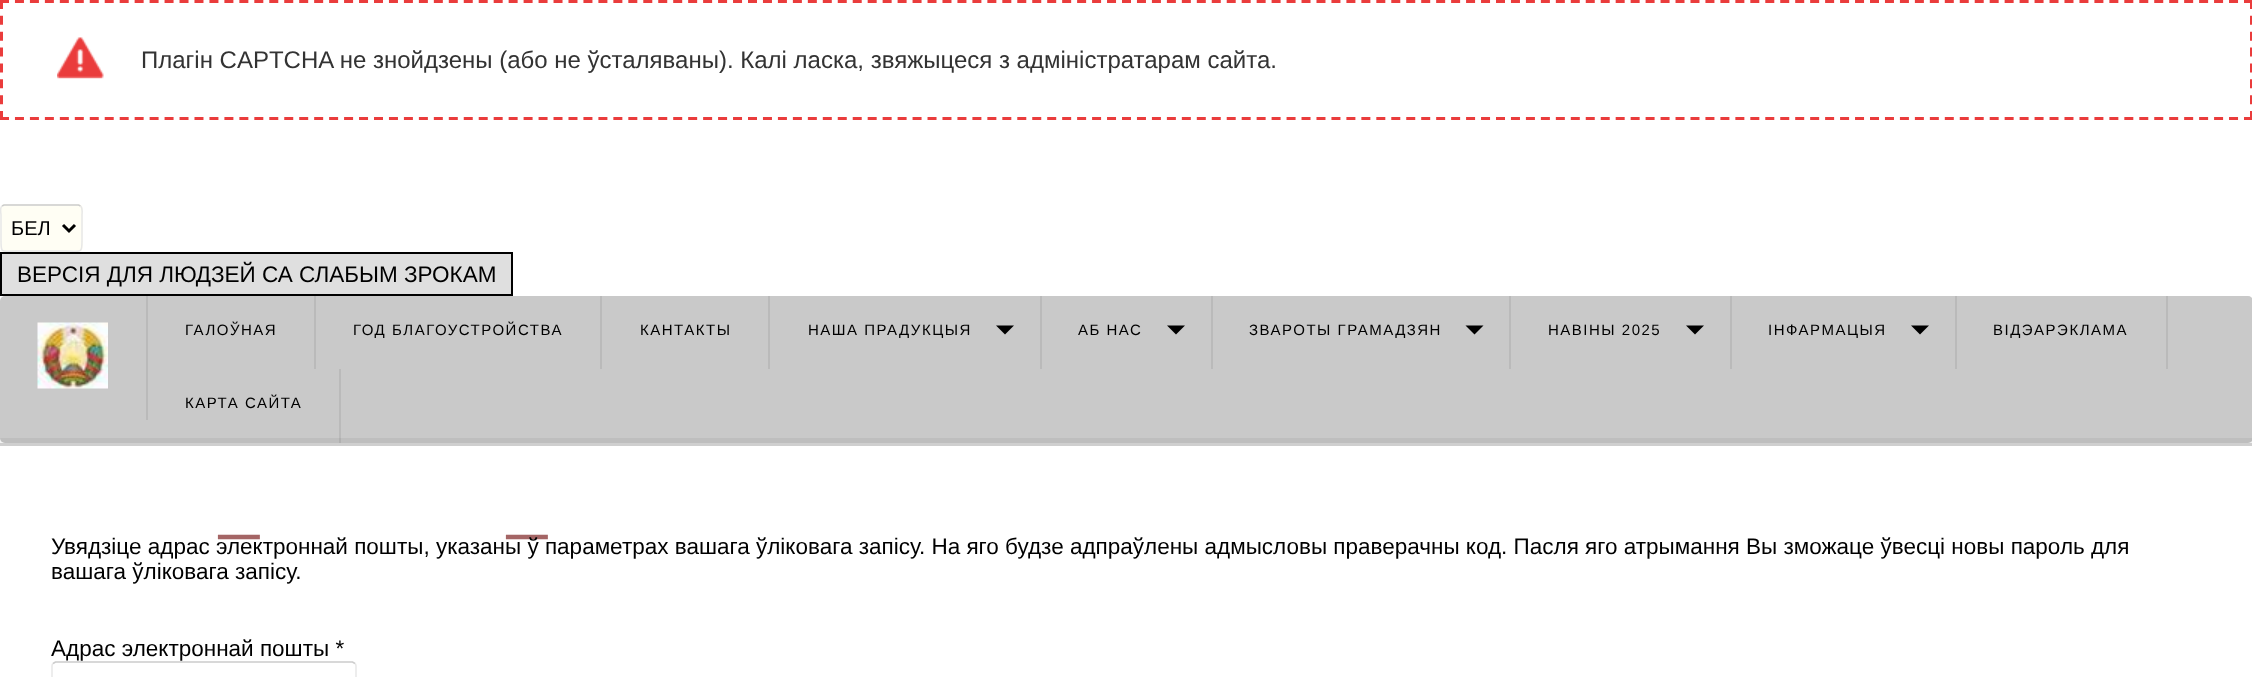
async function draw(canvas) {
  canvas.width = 2252;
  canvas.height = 677;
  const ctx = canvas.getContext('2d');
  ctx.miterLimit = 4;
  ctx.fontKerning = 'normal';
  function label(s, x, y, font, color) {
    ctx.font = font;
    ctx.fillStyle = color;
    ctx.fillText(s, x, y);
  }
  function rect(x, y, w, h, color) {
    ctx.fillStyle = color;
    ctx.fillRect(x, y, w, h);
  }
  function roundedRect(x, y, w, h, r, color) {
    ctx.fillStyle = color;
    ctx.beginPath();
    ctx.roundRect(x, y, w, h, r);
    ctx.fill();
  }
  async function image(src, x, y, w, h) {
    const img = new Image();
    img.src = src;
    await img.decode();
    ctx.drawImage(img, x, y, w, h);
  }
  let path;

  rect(0, 0, 2252, 677, '#fff');
  path = new Path2D('M0 1.5H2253');
  ctx.strokeStyle = '#ea3c3c';
  ctx.lineWidth = 3;
  ctx.setLineDash([9, 5.96]);
  ctx.stroke(path);
  path = new Path2D('M2251.5 0V120');
  ctx.setLineDash([9, 6.86]);
  ctx.stroke(path);
  path = new Path2D('M0 118.5H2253');
  ctx.setLineDash([9, 5.96]);
  ctx.stroke(path);
  path = new Path2D('M1.5 0V120');
  ctx.setLineDash([9, 6.86]);
  ctx.stroke(path);
  await image('assets/img1.png', 57, 37, 47, 42);
  label('Плагін CAPTCHA не знойдзены (або не ўсталяваны). Калі ласка, звяжыцеся з адміністратарам сайта.', 141, 68, '24px Liberation Sans', '#333');
  roundedRect(0, 204, 83, 48, 5, '#fffef4');
  path = new Path2D('M2 206L4 205H78.5L80.5 206');
  ctx.strokeStyle = '#ccc';
  ctx.lineWidth = 1.5;
  ctx.setLineDash([]);
  ctx.stroke(path);
  path = new Path2D('M80.5 206C83 208 82 213 82 215V241C82 254.5 80.5 251 66 251H17C2 251 1 254.5 1 241V215C1 213-.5 208 2 206');
  ctx.strokeStyle = '#e7e7e7';
  ctx.stroke(path);
  path = new Path2D('M63 225L69 231L75 225');
  ctx.strokeStyle = '#000';
  ctx.lineWidth = 3;
  ctx.stroke(path);
  label('БЕЛ', 11, 235, '20px Liberation Sans', '#000');
  ctx.fillStyle = '#dfdfdf';
  ctx.beginPath();
  ctx.rect(1, 253, 511, 42);
  ctx.fill();
  ctx.lineWidth = 2;
  ctx.stroke();
  label('ВЕРСІЯ ДЛЯ ЛЮДЗЕЙ СА СЛАБЫМ ЗРОКАМ', 17, 282, '22.5px Liberation Sans', '#000');
  roundedRect(0, 296, 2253, 147, 5, '#c9c9c9');
  rect(0, 438, 2252, 5, '#0000000d');
  rect(146, 296, 2, 124, '#bababa');
  await image('assets/img2.png', 37, 322, 71, 67);
  rect(314, 296, 2, 73, '#bababa');
  ctx.letterSpacing = '1.5px';
  label('ГАЛОЎНАЯ', 185, 335, '15px Liberation Sans', '#000');
  rect(600, 296, 2, 73, '#bababa');
  label('ГОД БЛАГОУСТРОЙСТВА', 353, 335, '15px Liberation Sans', '#000');
  rect(768, 296, 2, 73, '#bababa');
  label('КАНТАКТЫ', 640, 335, '15px Liberation Sans', '#000');
  rect(1040, 296, 2, 73, '#bababa');
  label('НАША ПРАДУКЦЫЯ', 808, 335, '15px Liberation Sans', '#000');
  path = new Path2D('M996 325.5H1014L1005 334.5Z');
  ctx.fill(path);
  rect(1211, 296, 2, 73, '#bababa');
  label('АБ НАС', 1078, 335, '15px Liberation Sans', '#000');
  path = new Path2D('M1167 325.5H1185L1176 334.5Z');
  ctx.fill(path);
  rect(1509, 296, 2, 73, '#bababa');
  label('ЗВАРОТЫ ГРАМАДЗЯН', 1249, 335, '15px Liberation Sans', '#000');
  path = new Path2D('M1465.5 325.5H1483.5L1474.5 334.5Z');
  ctx.fill(path);
  rect(1730, 296, 2, 73, '#bababa');
  label('НАВIНЫ 2025', 1548, 335, '15px Liberation Sans', '#000');
  path = new Path2D('M1686 325.5H1704L1695 334.5Z');
  ctx.fill(path);
  rect(1955, 296, 2, 73, '#bababa');
  label('IНФАРМАЦЫЯ', 1768, 335, '15px Liberation Sans', '#000');
  path = new Path2D('M1911 325.5H1929L1920 334.5Z');
  ctx.fill(path);
  rect(2166, 296, 2, 73, '#bababa');
  label('ВIДЭАРЭКЛАМА', 1993, 335, '15px Liberation Sans', '#000');
  rect(339, 369, 2, 74, '#5050501f');
  label('КАРТА САЙТА', 185, 408, '15px Liberation Sans', '#000');
  rect(0, 443, 2252, 3, '#cfcfcf');
  ctx.letterSpacing = '0px';
  label('_', 219, 525, '72px Liberation Sans', '#a46565');
  label('_', 507, 525, '72px Liberation Sans', '#a46565');
  label('Увядзіце адрас электроннай пошты, указаны ў параметрах вашага ўліковага запісу. На яго будзе адпраўлены адмысловы праверачны код. Пасля яго атрымання Вы зможаце ўвесці новы пароль для', 51, 554, '22.5px Liberation Sans', '#000');
  label('вашага ўліковага запісу.', 51, 579, '22.5px Liberation Sans', '#000');
  label('Адрас электроннай пошты *', 51, 656, '22.5px Liberation Sans', '#000');
  path = new Path2D('M53 663.5L55.5 662H352.5L355 663.5');
  ctx.strokeStyle = '#ccc';
  ctx.lineWidth = 1.5;
  ctx.stroke(path);
  path = new Path2D('M355 663.5C356 664 356 665 356 666V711C356 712 356 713 355 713.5C354.5 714.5 353.5 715 352.5 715H55.5C54.5 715 53.5 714.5 53 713.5C52 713 52 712 52 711V666C52 665 52 664 53 663.5');
  ctx.strokeStyle = '#e7e7e7';
  ctx.stroke(path);
}

draw(document.querySelector('canvas'));
